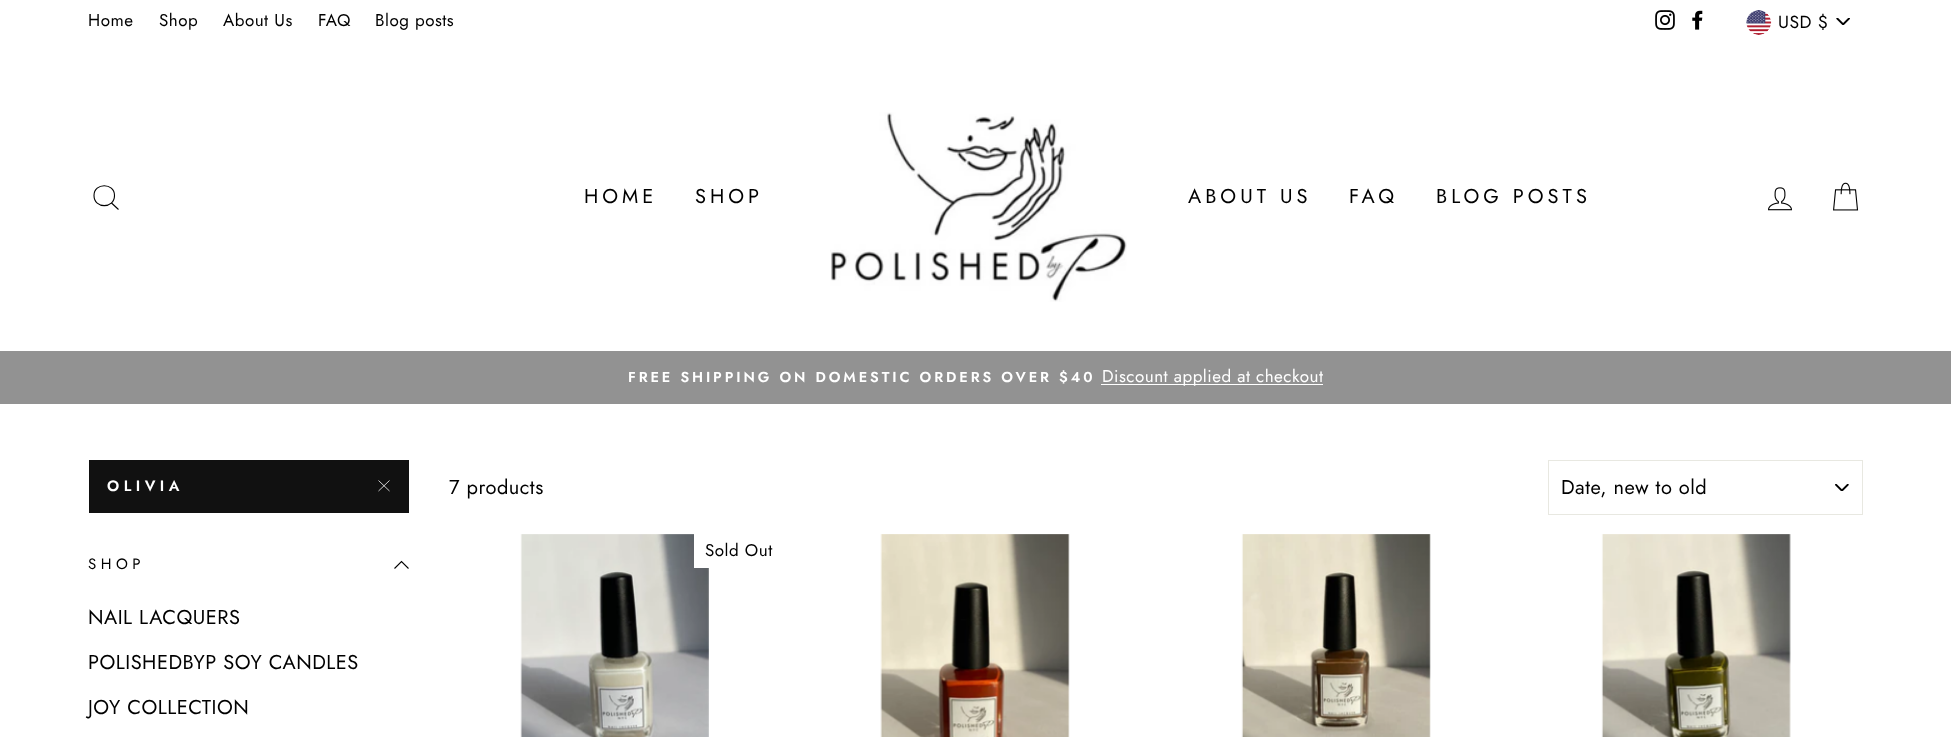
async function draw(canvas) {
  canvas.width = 1951;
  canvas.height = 737;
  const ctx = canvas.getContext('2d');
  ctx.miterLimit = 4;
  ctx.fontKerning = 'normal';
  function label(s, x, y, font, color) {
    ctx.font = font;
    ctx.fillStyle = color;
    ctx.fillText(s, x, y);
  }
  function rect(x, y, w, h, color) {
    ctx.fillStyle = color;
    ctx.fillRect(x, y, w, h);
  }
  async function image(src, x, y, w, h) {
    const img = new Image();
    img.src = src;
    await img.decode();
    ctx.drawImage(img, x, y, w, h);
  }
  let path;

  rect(0, 0, 1951, 737, '#fff');
  ctx.letterSpacing = '0.5px';
  label('Home', 88, 26, '17px Jost', '#000');
  label('Shop', 159, 26, '17px Jost', '#000');
  label('About Us', 223, 26, '17px Jost', '#000');
  label('FAQ', 318, 26, '17px Jost', '#000');
  label('Blog posts', 375, 26, '17px Jost', '#000');
  await image('assets/img1.png', 1655, 10, 20, 20);
  await image('assets/img2.png', 1692, 10, 11, 20);
  await image('assets/img3.png', 1836, 18, 14, 7);
  await image('assets/img4.png', 1746, 10, 26, 25);
  label('USD $', 1778, 28, '17.5px Jost', '#000');
  path = new Path2D('M114.5 195.5C114.5 209 94 209 94 195.5C94 182.5 114.5 182.5 114.5 195.5ZM118.5 209.5L111.5 203');
  ctx.strokeStyle = '#000';
  ctx.lineWidth = 1.1;
  ctx.stroke(path);
  ctx.letterSpacing = '4px';
  label('HOME', 584, 203, '20px Jost', '#000');
  label('SHOP', 695, 203, '20px Jost', '#000');
  await image('assets/img5.png', 830, 112, 297, 190);
  label('ABOUT US', 1188, 203, '20px Jost', '#000');
  label('FAQ', 1349, 203, '20px Jost', '#000');
  label('BLOG POSTS', 1436, 203, '20px Jost', '#000');
  await image('assets/img6.png', 1768, 187, 24, 24);
  await image('assets/img7.png', 1833, 182, 26, 29);
  rect(0, 351, 1951, 53, '#929292');
  ctx.letterSpacing = '2.9px';
  label('FREE SHIPPING ON DOMESTIC ORDERS OVER $40', 628, 382, '600 14.45px Jost', '#fff');
  rect(1101, 384, 222, 1, '#fff');
  ctx.letterSpacing = '0.5px';
  label('Discount applied at checkout', 1102, 382, '17px Jost', '#fff');
  rect(89, 460, 320, 53, '#111');
  ctx.letterSpacing = '4.5px';
  label('OLIVIA', 107, 491, '600 15px Jost', '#fff');
  path = new Path2D('M378.5 480.5L389.5 491M389.5 480.5L378.5 491');
  ctx.strokeStyle = '#fff';
  ctx.lineWidth = 0.8;
  ctx.stroke(path);
  label('SHOP', 88, 569, '15px Jost', '#000');
  path = new Path2D('M394.5 568.5L401.5 561.5L408.5 568.5');
  ctx.strokeStyle = '#000';
  ctx.lineWidth = 1.1;
  ctx.stroke(path);
  ctx.letterSpacing = '0.5px';
  label('NAIL LACQUERS', 88, 624, '20px Jost', '#000');
  label('POLISHEDBYP SOY CANDLES', 88, 669, '20px Jost', '#000');
  label('JOY COLLECTION', 88, 714, '20px Jost', '#000');
  label('7 products', 449, 494, '20px Jost', '#000');
  await image('assets/img8.png', 1835, 484, 14, 7);
  ctx.strokeStyle = '#e8e8e1';
  ctx.lineWidth = 1;
  ctx.strokeRect(1548.5, 460.5, 314, 54);
  label('Date, new to old', 1561, 494, '20px Jost', '#000');
  await image('assets/img9.png', 520, 534, 189, 203);
  rect(694, 534, 15, 34, '#fff');
  label('Sold Out', 705, 556, '17px Jost', '#000');
  await image('assets/img10.png', 880, 534, 190, 203);
  await image('assets/img11.png', 1241, 534, 190, 203);
  await image('assets/img12.png', 1601, 534, 190, 203);
}

draw(document.querySelector('canvas'));
